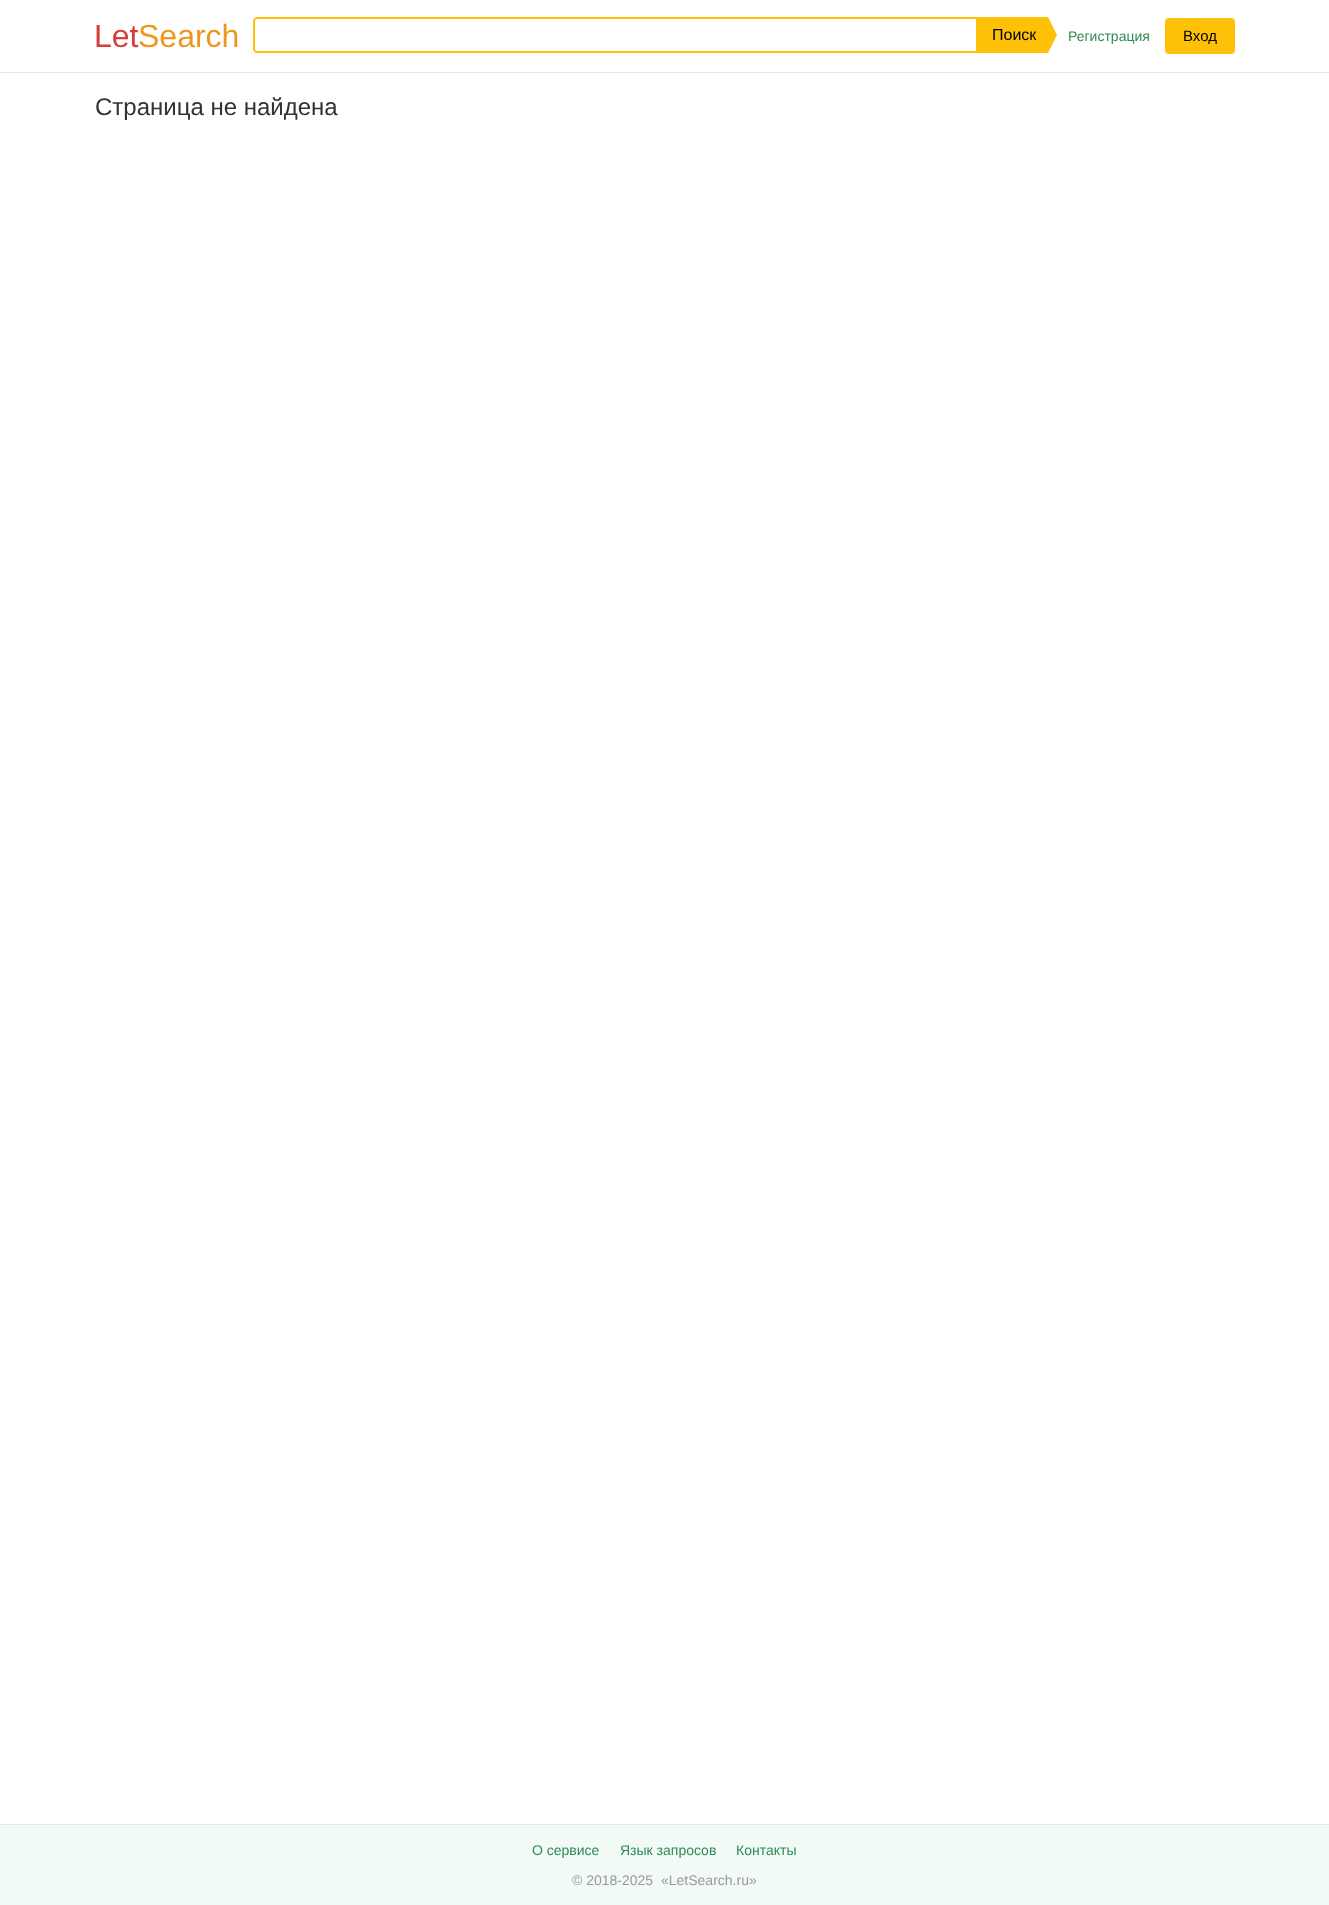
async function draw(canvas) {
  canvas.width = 1329;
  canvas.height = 1905;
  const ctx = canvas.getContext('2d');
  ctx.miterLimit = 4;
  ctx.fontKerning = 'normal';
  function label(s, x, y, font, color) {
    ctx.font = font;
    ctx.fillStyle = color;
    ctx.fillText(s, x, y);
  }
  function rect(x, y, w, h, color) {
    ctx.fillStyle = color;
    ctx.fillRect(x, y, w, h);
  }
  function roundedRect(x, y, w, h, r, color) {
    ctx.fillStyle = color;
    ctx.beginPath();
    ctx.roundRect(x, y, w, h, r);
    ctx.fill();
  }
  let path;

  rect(0, 0, 1329, 1905, '#fff');
  rect(0, 72, 1329, 1, '#e6e6e6');
  label('Let', 94, 47, '32px Liberation Sans', '#d43f3a');
  label('Search', 138, 47, '32px Liberation Sans', '#ec971f');
  ctx.fillStyle = '#ffc107';
  path = new Path2D('M257 17H976V53H257C255 53 253 51 253 49V21C253 19 255 17 257 17ZM257 19H976V51H257C256 51 255 50 255 49V21C255 20 256 19 257 19Z');
  ctx.fill(path, 'evenodd');
  rect(976, 17, 72, 36, '#ffc107');
  label('Поиск', 992, 40, '16px Liberation Sans', '#000');
  ctx.fillStyle = '#ffc107';
  path = new Path2D('M1048 53V17L1057 35Z');
  ctx.fill(path);
  label('Регистрация', 1068, 41, '14px Liberation Sans', '#2e8b57');
  roundedRect(1165, 18, 70, 36, 4, '#ffc107');
  label('Вход', 1183, 41, '15px Liberation Sans', '#000');
  label('Страница не найдена', 95, 115, '24px Liberation Sans', '#333');
  ctx.strokeStyle = '#e6e6e6';
  ctx.strokeRect(-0.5, 1824.5, 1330, 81);
  rect(0, 1825, 1329, 80, '#f1faf5');
  label('О сервисе', 532, 1855, '14px Liberation Sans', '#2e8b57');
  label('Язык запросов', 620, 1855, '14px Liberation Sans', '#2e8b57');
  label('Контакты', 736, 1855, '14px Liberation Sans', '#2e8b57');
  label('© 2018-2025', 572, 1885, '14px Liberation Sans', '#999');
  label('«LetSearch.ru»', 661, 1885, '14px Liberation Sans', '#999');
}

draw(document.querySelector('canvas'));
